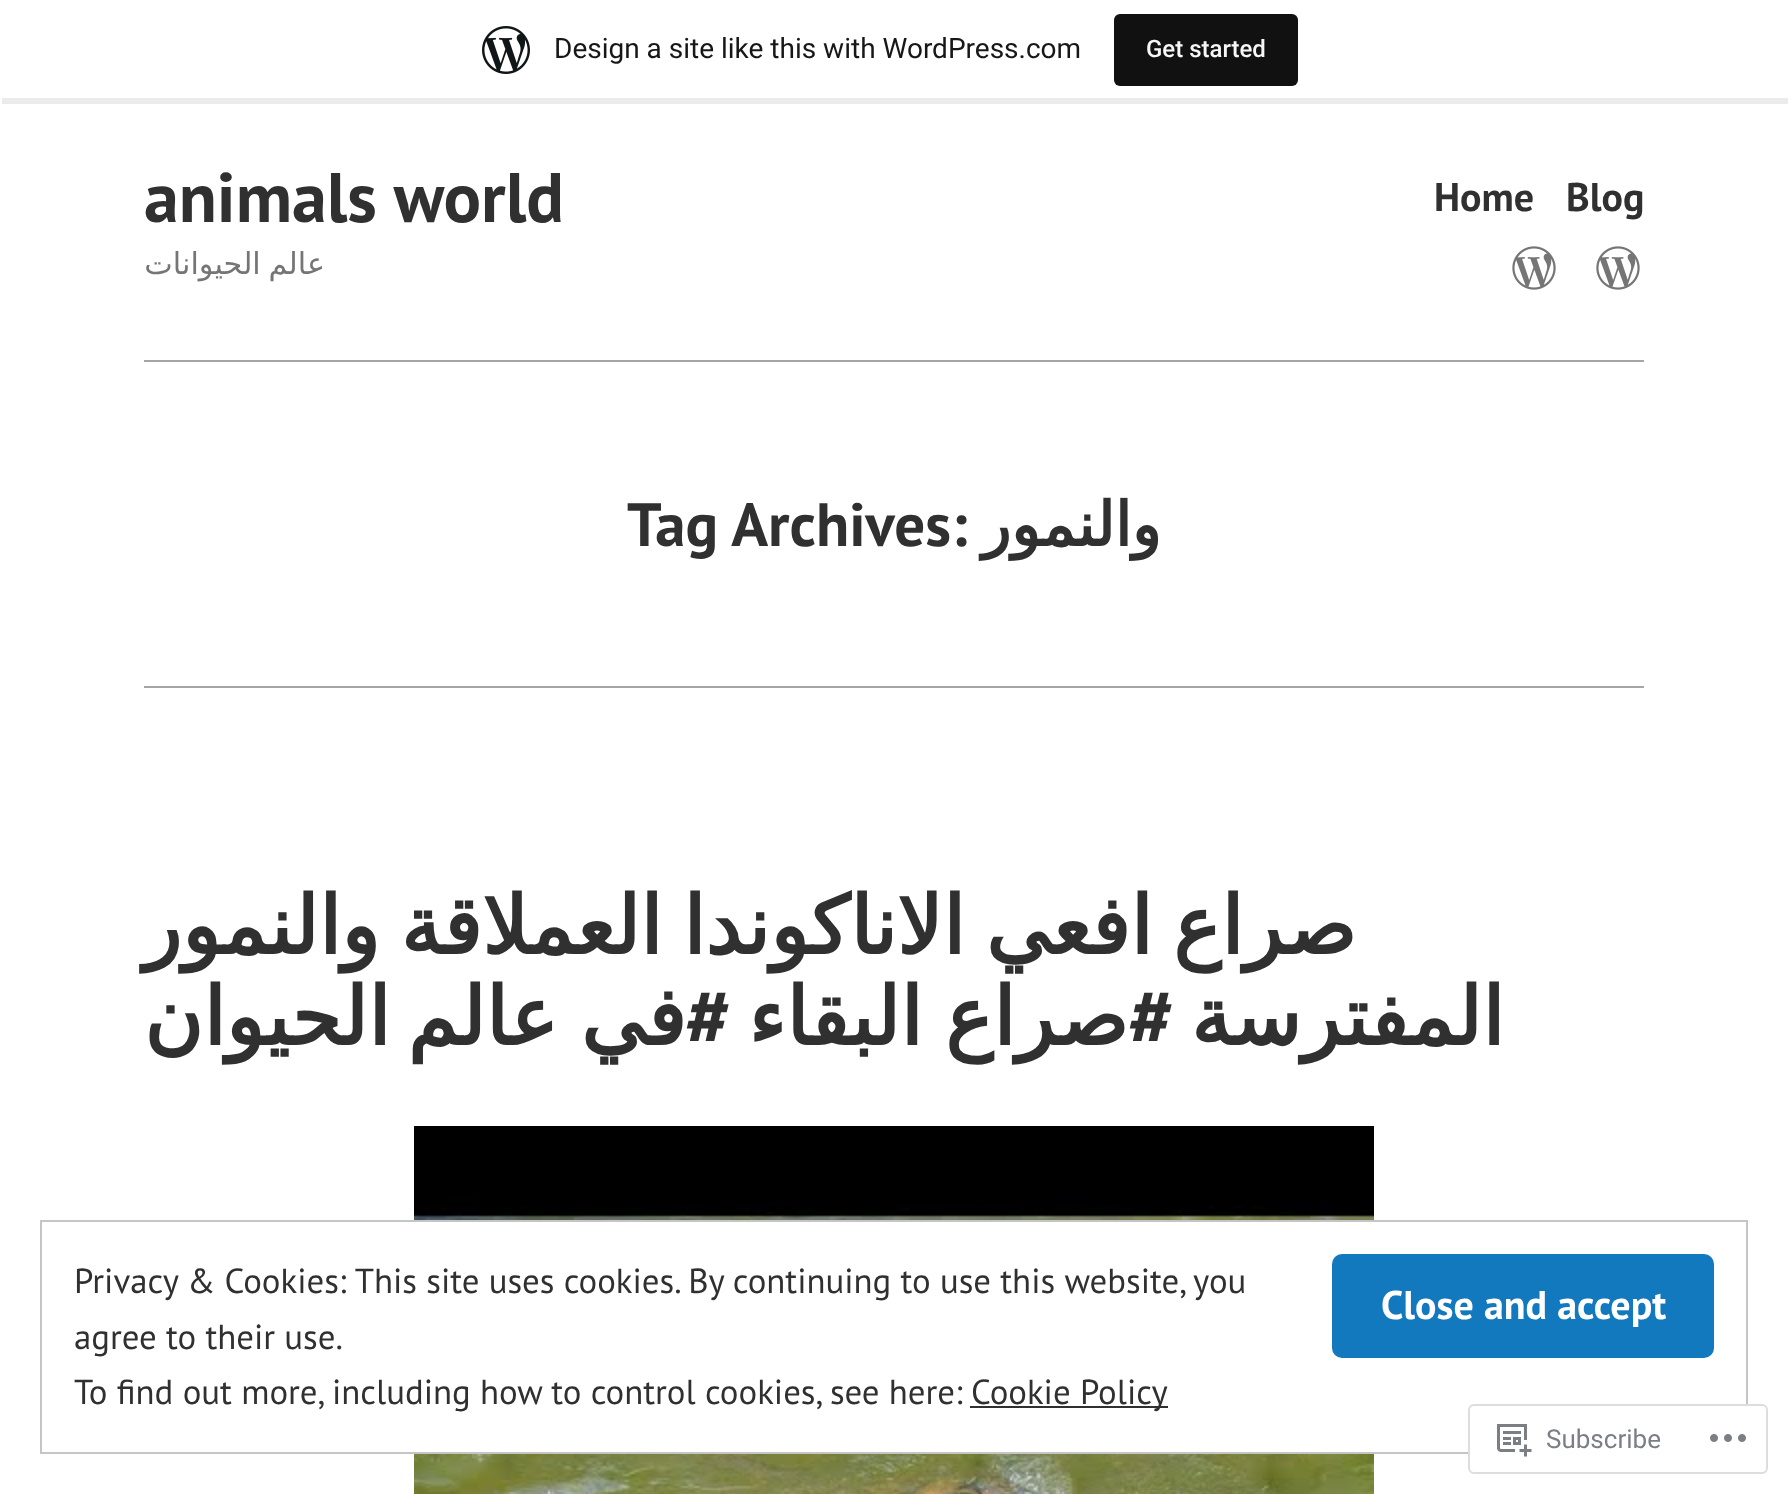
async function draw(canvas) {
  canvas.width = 1788;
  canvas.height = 1494;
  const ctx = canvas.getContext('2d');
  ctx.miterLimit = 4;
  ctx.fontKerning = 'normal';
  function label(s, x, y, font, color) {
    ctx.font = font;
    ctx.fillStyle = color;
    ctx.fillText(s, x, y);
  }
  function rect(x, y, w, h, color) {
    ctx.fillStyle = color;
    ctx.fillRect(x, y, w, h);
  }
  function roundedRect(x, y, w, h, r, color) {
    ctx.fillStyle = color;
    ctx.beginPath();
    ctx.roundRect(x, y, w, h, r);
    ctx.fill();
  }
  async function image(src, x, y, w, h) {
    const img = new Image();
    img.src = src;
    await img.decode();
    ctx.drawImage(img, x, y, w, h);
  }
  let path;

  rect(0, 0, 1788, 1494, '#fff');
  ctx.fillStyle = '#00000014';
  path = new Path2D('M2 98V104H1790V6H1788V98Z');
  ctx.fill(path);
  await image('assets/img1.png', 482, 26, 48, 48);
  label('Design a site like this with WordPress.com', 554, 58, '28px Roboto', '#171717');
  roundedRect(1114, 14, 184, 72, 6, '#111');
  label('Get started', 1146, 57, '500 24px Roboto', '#f6f7f7');
  label('animals world', 144, 222, 'bold 70px PT Sans', '#303030');
  label('Home', 1434, 211, 'bold 40px PT Sans', '#303030');
  label('Blog', 1566, 211, 'bold 40px PT Sans', '#303030');
  ctx.wordSpacing = '-2px';
  ctx.direction = 'rtl';
  label('عالم الحيوانات', 325, 274, '30.25px DejaVu Sans', '#757575');
  await image('assets/img2.png', 1512, 246, 44, 44);
  await image('assets/img2.png', 1596, 246, 44, 44);
  rect(144, 360, 1500, 2, '#a5a5a5');
  ctx.wordSpacing = '0px';
  ctx.direction = 'ltr';
  label('Tag Archives:', 627, 546, 'bold 61px PT Sans', '#303030');
  ctx.direction = 'rtl';
  label('والنمور', 1161, 546, 'bold 61px DejaVu Sans', '#303030');
  rect(144, 686, 1500, 2, '#a5a5a5');
  ctx.wordSpacing = '-5px';
  label('صراع افعي الاناكوندا العملاقة والنمور', 1356, 954, 'bold 80.5px DejaVu Sans', '#303030');
  ctx.wordSpacing = '0px';
  label('الحيوان', 390, 1045, 'bold 80.5px DejaVu Sans', '#303030');
  ctx.wordSpacing = '-3px';
  label('في عالم', 686, 1045, 'bold 80.5px DejaVu Sans', '#303030');
  ctx.wordSpacing = '0px';
  label('#', 731, 1045, 'bold 80.5px PT Sans', '#303030');
  ctx.wordSpacing = '-3px';
  label('صراع البقاء', 1128, 1045, 'bold 80.5px DejaVu Sans', '#303030');
  ctx.wordSpacing = '0px';
  label('#', 1174, 1045, 'bold 80.5px PT Sans', '#303030');
  label('المفترسة', 1504, 1045, 'bold 80.5px DejaVu Sans', '#303030');
  await image('assets/img3.png', 414, 1126, 960, 368);
  rect(414, 1222, 960, 230, '#fff');
  ctx.strokeStyle = '#c5c5c5';
  ctx.lineWidth = 2;
  ctx.strokeRect(41, 1221, 1706, 232);
  ctx.direction = 'ltr';
  label('Privacy & Cookies: This site uses cookies. By continuing to use this website, you', 74, 1293, '34.8px PT Sans', '#303030');
  roundedRect(1332, 1254, 382, 104, 10, '#1279be');
  label('Close and accept', 1381, 1319, 'bold 40px PT Sans', '#fff');
  label('agree to their use.', 74, 1349, '34.8px PT Sans', '#303030');
  label('To find out more, including how to control cookies, see here:', 74, 1404, '34.8px PT Sans', '#303030');
  rect(970, 1406, 198, 2, '#303030');
  label('Cookie Policy', 971, 1404, '34.8px PT Sans', '#303030');
  ctx.fillStyle = '#fffffffa';
  ctx.beginPath();
  ctx.roundRect(1469, 1405, 298, 68, 5);
  ctx.fill();
  ctx.strokeStyle = '#dddddf';
  ctx.stroke();
  await image('assets/img4.png', 1497, 1424, 35, 33);
  label('Subscribe', 1546, 1448, '26px Roboto', '#7b7f85');
  await image('assets/img5.png', 1710, 1434, 36, 8);
}

draw(document.querySelector('canvas'));
